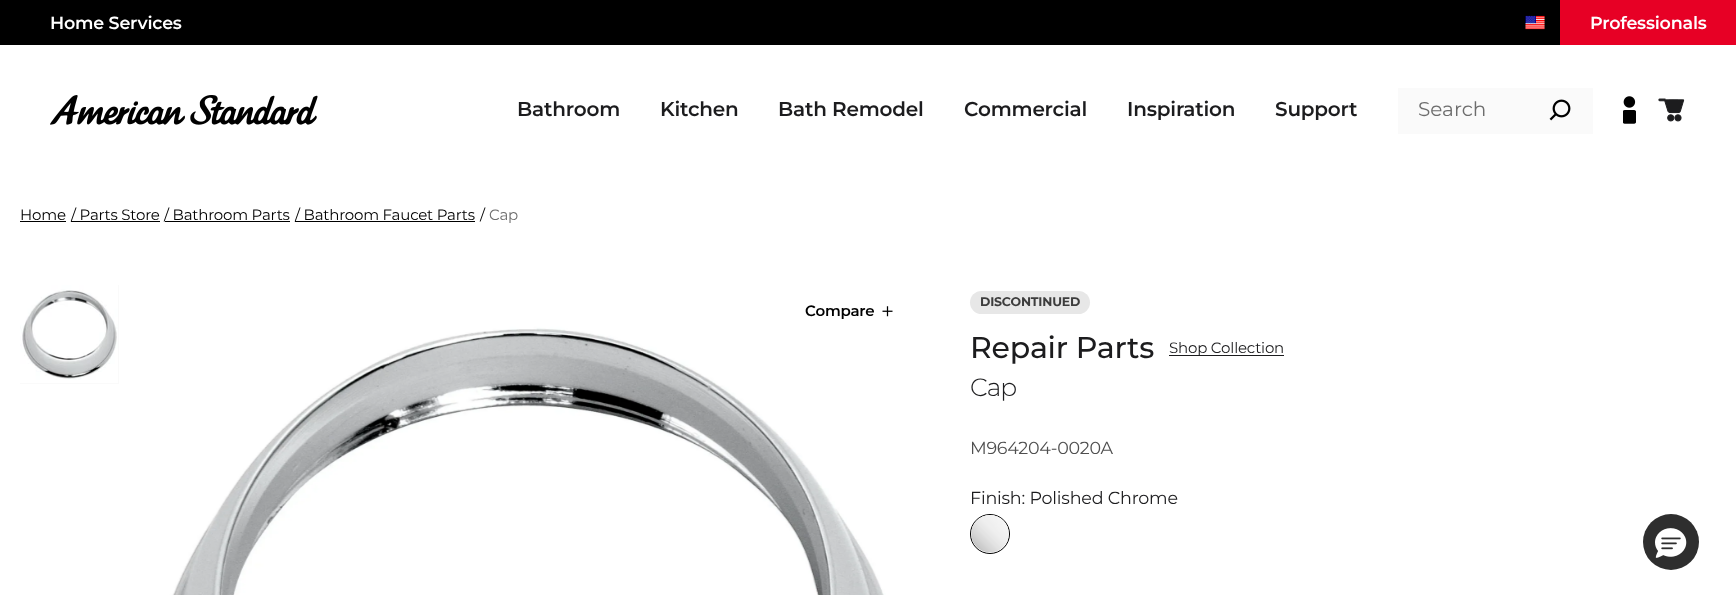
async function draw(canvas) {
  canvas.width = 1736;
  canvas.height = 595;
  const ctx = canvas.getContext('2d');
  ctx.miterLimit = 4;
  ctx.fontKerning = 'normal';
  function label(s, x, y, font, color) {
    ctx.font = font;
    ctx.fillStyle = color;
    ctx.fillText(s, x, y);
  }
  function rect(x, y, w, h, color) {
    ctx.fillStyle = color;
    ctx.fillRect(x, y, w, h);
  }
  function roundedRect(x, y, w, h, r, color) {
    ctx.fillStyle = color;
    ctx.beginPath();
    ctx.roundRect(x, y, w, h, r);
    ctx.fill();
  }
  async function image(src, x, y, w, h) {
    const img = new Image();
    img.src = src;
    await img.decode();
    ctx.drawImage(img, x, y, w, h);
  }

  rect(0, 0, 1736, 595, '#fff');
  rect(0, 0, 1560, 45, '#000');
  ctx.letterSpacing = '-0.2px';
  label('Home Services', 50, 29, '600 17.5px Montserrat', '#fff');
  await image('assets/img1.png', 1525, 15, 20, 15);
  rect(1560, 0, 176, 45, '#e70025');
  label('Professionals', 1590, 29, '600 17.5px Montserrat', '#fff');
  await image('assets/img2.png', 50, 95, 268, 30);
  label('Bathroom', 517, 116, '600 20px Montserrat', '#1c1c1e');
  label('Kitchen', 660, 116, '600 20px Montserrat', '#1c1c1e');
  label('Bath Remodel', 778, 116, '600 20px Montserrat', '#1c1c1e');
  label('Commercial', 964, 116, '600 20px Montserrat', '#1c1c1e');
  label('Inspiration', 1127, 116, '600 20px Montserrat', '#1c1c1e');
  label('Support', 1275, 116, '600 20px Montserrat', '#1c1c1e');
  rect(1398, 88, 195, 46, '#fafafa');
  ctx.letterSpacing = '0px';
  label('Search', 1418, 116, '20px Montserrat', '#6d6d6d');
  await image('assets/img3.png', 1549, 99, 22, 22);
  await image('assets/img4.png', 1623, 96, 13, 28);
  await image('assets/img5.png', 1658, 98, 27, 24);
  ctx.letterSpacing = '-0.2px';
  label('Home', 20, 220, '15px Montserrat', '#000');
  rect(20, 221, 46, 1, '#000');
  rect(71, 221, 89, 1, '#000');
  label('/ Parts Store', 71, 220, '15px Montserrat', '#000');
  rect(165, 221, 125, 1, '#000');
  label('/ Bathroom Parts', 164, 220, '15px Montserrat', '#000');
  rect(295, 221, 180, 1, '#000');
  label('/ Bathroom Faucet Parts', 295, 220, '15px Montserrat', '#000');
  label('/', 480, 220, '15px Montserrat', '#000');
  label('Cap', 489, 220, '15px Montserrat', '#6d6d6d');
  rect(20, 285, 99, 99, '#fafafa');
  await image('assets/img6.png', 20, 285, 98, 98);
  await image('assets/img7.png', 134, 285, 786, 310);
  label('Compare', 805, 316, '600 15px Montserrat', '#000');
  await image('assets/img8.png', 882, 306, 11, 11);
  roundedRect(970, 291, 120, 23, 11.5, '#e7e7e7');
  label('DISCONTINUED', 980, 306, 'bold 12.5px Montserrat', '#3d3d3d');
  label('Repair Parts', 970, 358, '500 30px Montserrat', '#1c1c1e');
  rect(1169, 355, 115, 1, '#1c1c1e');
  label('Shop Collection', 1169, 353, '15px Montserrat', '#1c1c1e');
  ctx.letterSpacing = '-1px';
  label('Cap', 970, 396, '300 25px Montserrat', '#1c1c1e');
  ctx.letterSpacing = '-0.3px';
  label('M964204-0020A', 970, 454, '17.5px Montserrat', '#4f4f4f');
  ctx.letterSpacing = '-0.2px';
  label('Finish: Polished Chrome', 970, 504, '17.5px Montserrat', '#1c1c1e');
  ctx.beginPath();
  ctx.arc(990, 534, 19.5, 0, 2 * Math.PI);
  ctx.strokeStyle = '#000';
  ctx.stroke();
  await image('assets/img9.png', 971, 515, 38, 38);
  ctx.fillStyle = '#2e2e2e';
  ctx.beginPath();
  ctx.arc(1671, 542, 28, 0, 2 * Math.PI);
  ctx.fill();
  await image('assets/img10.png', 1655, 528, 32, 30);
}

draw(document.querySelector('canvas'));
